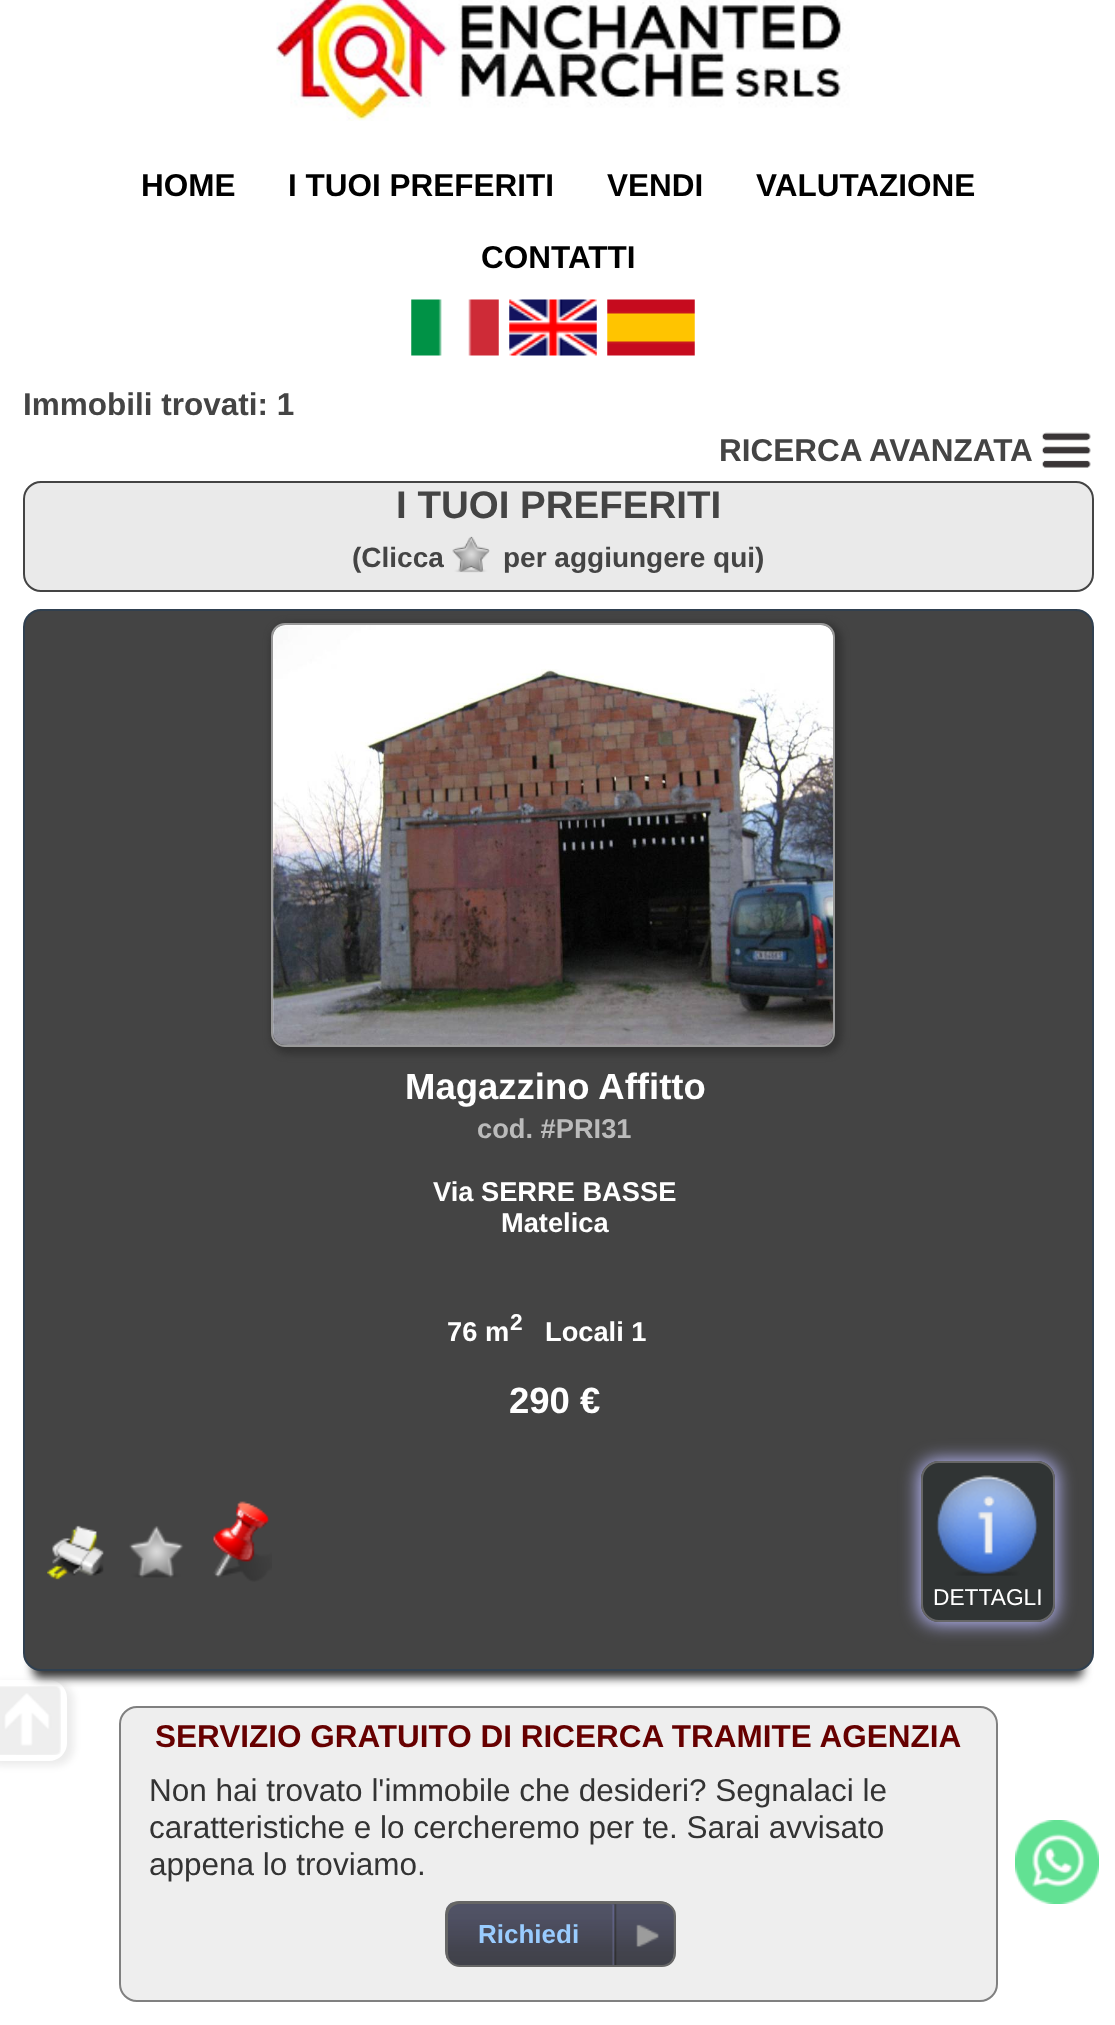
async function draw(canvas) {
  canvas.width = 1115;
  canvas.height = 2025;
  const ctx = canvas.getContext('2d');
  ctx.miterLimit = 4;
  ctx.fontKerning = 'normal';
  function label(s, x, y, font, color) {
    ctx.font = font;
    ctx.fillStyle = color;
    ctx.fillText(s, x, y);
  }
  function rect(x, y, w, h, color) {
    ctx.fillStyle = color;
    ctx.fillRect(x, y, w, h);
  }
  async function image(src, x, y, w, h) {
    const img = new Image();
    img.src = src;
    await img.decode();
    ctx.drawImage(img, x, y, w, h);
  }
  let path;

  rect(0, 0, 1115, 2025, '#fff');
  await image('assets/img1.png', 276, 0, 574, 121);
  label('HOME', 141, 196, 'bold 31.5px Liberation Sans', '#000');
  label('I TUOI PREFERITI', 288, 196, 'bold 31.5px Liberation Sans', '#000');
  label('VENDI', 607, 196, 'bold 31.5px Liberation Sans', '#000');
  label('VALUTAZIONE', 756, 196, 'bold 31.5px Liberation Sans', '#000');
  label('CONTATTI', 481, 268, 'bold 31.5px Liberation Sans', '#000');
  await image('assets/img2.png', 411, 299, 88, 57);
  await image('assets/img3.png', 509, 299, 88, 57);
  await image('assets/img4.png', 607, 299, 88, 57);
  label('Immobili trovati: 1', 23, 415, 'bold 31.5px Liberation Sans', '#444');
  label('RICERCA AVANZATA', 719, 461, 'bold 31.5px Liberation Sans', '#444');
  await image('assets/img5.png', 1041, 432, 50, 36);
  ctx.fillStyle = '#eaeaea';
  ctx.beginPath();
  ctx.roundRect(24, 482, 1069, 109, 17);
  ctx.fill();
  ctx.strokeStyle = '#444';
  ctx.lineWidth = 2;
  ctx.stroke();
  label('I TUOI PREFERITI', 396, 518, 'bold 38.5px Liberation Sans', '#444');
  label('(Clicca', 352, 567, 'bold 28px Liberation Sans', '#444');
  await image('assets/img6.png', 452, 536, 38, 37);
  label('per aggiungere qui)', 503, 567, 'bold 28px Liberation Sans', '#444');
  ctx.fillStyle = '#333';
  ctx.filter = 'blur(5px)';
  ctx.beginPath();
  ctx.roundRect(33, 637, 1050, 1041, 7);
  ctx.fill();
  ctx.filter = 'none';
  ctx.fillStyle = '#444';
  ctx.beginPath();
  ctx.roundRect(24, 610, 1069, 1060, 17);
  ctx.fill();
  ctx.strokeStyle = '#304050';
  ctx.stroke();
  ctx.fillStyle = '#333';
  ctx.filter = 'blur(3.5px)';
  ctx.beginPath();
  ctx.roundRect(271, 623, 571, 431, 18);
  ctx.fill();
  ctx.filter = 'none';
  ctx.beginPath();
  ctx.roundRect(272, 624, 562, 422, 13);
  ctx.strokeStyle = '#999';
  ctx.stroke();
  await image('assets/img7.png', 273, 625, 560, 420);
  label('Magazzino Affitto', 405, 1099, 'bold 36.5px Liberation Sans', '#fff');
  label('cod. #PRI31', 477, 1138, 'bold 27.25px Liberation Sans', '#bbb');
  label('Via SERRE BASSE', 433, 1201, 'bold 27.25px Liberation Sans', '#fff');
  label('Matelica', 501, 1232, 'bold 27.25px Liberation Sans', '#fff');
  label('76 m', 447, 1341, 'bold 27.25px Liberation Sans', '#fff');
  label('2', 510, 1330, 'bold 22.75px Liberation Sans', '#fff');
  label('Locali 1', 545, 1341, 'bold 27.25px Liberation Sans', '#fff');
  label('290 €', 509, 1413, 'bold 36.5px Liberation Sans', '#fff');
  await image('assets/img8.png', 47, 1525, 57, 55);
  await image('assets/img9.png', 129, 1526, 55, 52);
  await image('assets/img10.png', 212, 1501, 60, 81);
  ctx.save();
  path = new Path2D('M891 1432H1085V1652H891ZM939 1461H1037C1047 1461 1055 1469 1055 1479V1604C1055 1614 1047 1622 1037 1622H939C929 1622 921 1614 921 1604V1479C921 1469 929 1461 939 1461Z');
  ctx.clip(path, 'evenodd');
  ctx.fillStyle = '#bbf';
  ctx.filter = 'blur(9px)';
  ctx.beginPath();
  ctx.roundRect(919, 1460, 138, 164, 19);
  ctx.fill();
  ctx.filter = 'none';
  ctx.restore();
  ctx.fillStyle = '#141e1e66';
  ctx.beginPath();
  ctx.roundRect(922, 1462, 132, 159, 17);
  ctx.fill();
  ctx.strokeStyle = '#666';
  ctx.stroke();
  await image('assets/img11.png', 936, 1475, 102, 101);
  label('DETTAGLI', 933, 1605, '22.75px Liberation Sans', '#fff');
  ctx.fillStyle = '#eee';
  ctx.beginPath();
  ctx.roundRect(120, 1707, 877, 294, 17);
  ctx.fill();
  ctx.strokeStyle = '#808080';
  ctx.stroke();
  label('SERVIZIO GRATUITO DI RICERCA TRAMITE AGENZIA', 155, 1747, 'bold 31.5px Liberation Sans', '#600');
  label('Non hai trovato l\'immobile che desideri? Segnalaci le', 149, 1801, '31.5px Liberation Sans', '#333');
  label('caratteristiche e lo cercheremo per te. Sarai avvisato', 149, 1838, '31.5px Liberation Sans', '#333');
  label('appena lo troviamo.', 149, 1875, '31.5px Liberation Sans', '#333');
  await image('assets/img12.png', 446, 1902, 226, 63);
  ctx.beginPath();
  ctx.roundRect(446, 1902, 227, 62, 13);
  ctx.strokeStyle = '#666';
  ctx.stroke();
  await image('assets/img13.png', 448, 1904, 226, 62);
  ctx.beginPath();
  ctx.roundRect(447, 1903, 228, 63, 13);
  ctx.stroke();
  label('Richiedi', 478, 1943, 'bold 26px Liberation Sans', '#9cf');
  ctx.save();
  path = new Path2D('M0 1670H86V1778H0ZM-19 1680H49C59 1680 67 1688 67 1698V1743C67 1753 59 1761 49 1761H-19Z');
  ctx.clip(path, 'evenodd');
  ctx.fillStyle = '#11111114';
  ctx.filter = 'blur(3.5px)';
  ctx.beginPath();
  ctx.roundRect(-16, 1682, 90, 84, 19);
  ctx.fill();
  ctx.filter = 'none';
  ctx.restore();
  await image('assets/img14.png', 0, 1686, 61, 69);
  await image('assets/img15.png', 1015, 1820, 84, 84);
}

draw(document.querySelector('canvas'));
